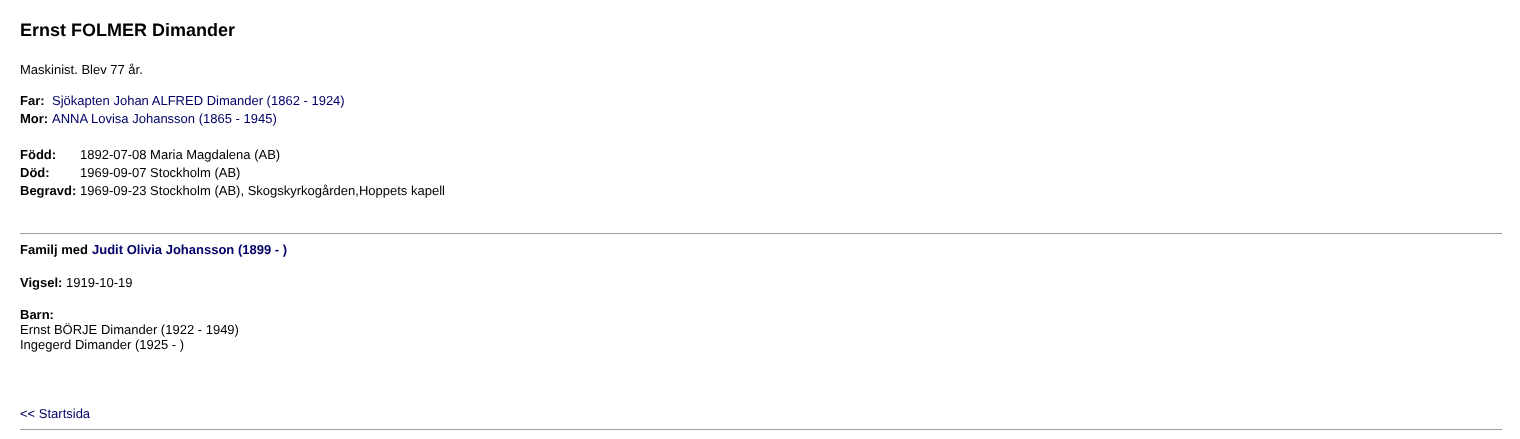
async function draw(canvas) {
  canvas.width = 1520;
  canvas.height = 439;
  const ctx = canvas.getContext('2d');
  ctx.miterLimit = 4;
  ctx.fontKerning = 'normal';
  function label(s, x, y, font, color) {
    ctx.font = font;
    ctx.fillStyle = color;
    ctx.fillText(s, x, y);
  }
  function rect(x, y, w, h, color) {
    ctx.fillStyle = color;
    ctx.fillRect(x, y, w, h);
  }

  rect(0, 0, 1520, 439, '#fff');
  label('Ernst FOLMER Dimander', 20, 36, 'bold 18px Liberation Sans', '#000');
  label('Maskinist. Blev 77 år.', 20, 74, '13px Liberation Sans', '#000');
  label('Far:', 20, 105, 'bold 13px Liberation Sans', '#000');
  label('Sjökapten Johan ALFRED Dimander (1862 - 1924)', 52, 105, '13px Liberation Sans', '#006');
  label('Mor:', 20, 123, 'bold 13px Liberation Sans', '#000');
  label('ANNA Lovisa Johansson (1865 - 1945)', 52, 123, '13px Liberation Sans', '#006');
  label('Född:', 20, 159, 'bold 13px Liberation Sans', '#000');
  label('1892-07-08 Maria Magdalena (AB)', 80, 159, '13px Liberation Sans', '#000');
  label('Död:', 20, 177, 'bold 13px Liberation Sans', '#000');
  label('1969-09-07 Stockholm (AB)', 80, 177, '13px Liberation Sans', '#000');
  label('Begravd:', 20, 195, 'bold 13px Liberation Sans', '#000');
  label('1969-09-23 Stockholm (AB), Skogskyrkogården,Hoppets kapell', 80, 195, '13px Liberation Sans', '#000');
  rect(20, 233, 1483, 1, '#9f9f9f');
  rect(1502, 233, 1, 1, '#eee');
  label('Familj med', 20, 254, 'bold 13px Liberation Sans', '#000');
  label('Judit Olivia Johansson (1899 - )', 92, 254, 'bold 13px Liberation Sans', '#006');
  label('Vigsel:', 20, 287, 'bold 13px Liberation Sans', '#000');
  label('1919-10-19', 66, 287, '13px Liberation Sans', '#000');
  label('Barn:', 20, 319, 'bold 13px Liberation Sans', '#000');
  label('Ernst BÖRJE Dimander (1922 - 1949)', 20, 334, '13px Liberation Sans', '#000');
  label('Ingegerd Dimander (1925 - )', 20, 349, '13px Liberation Sans', '#000');
  label('<< Startsida', 20, 418, '13px Liberation Sans', '#006');
  rect(20, 429, 1483, 1, '#9f9f9f');
  rect(1502, 429, 1, 1, '#eee');
}

draw(document.querySelector('canvas'));
